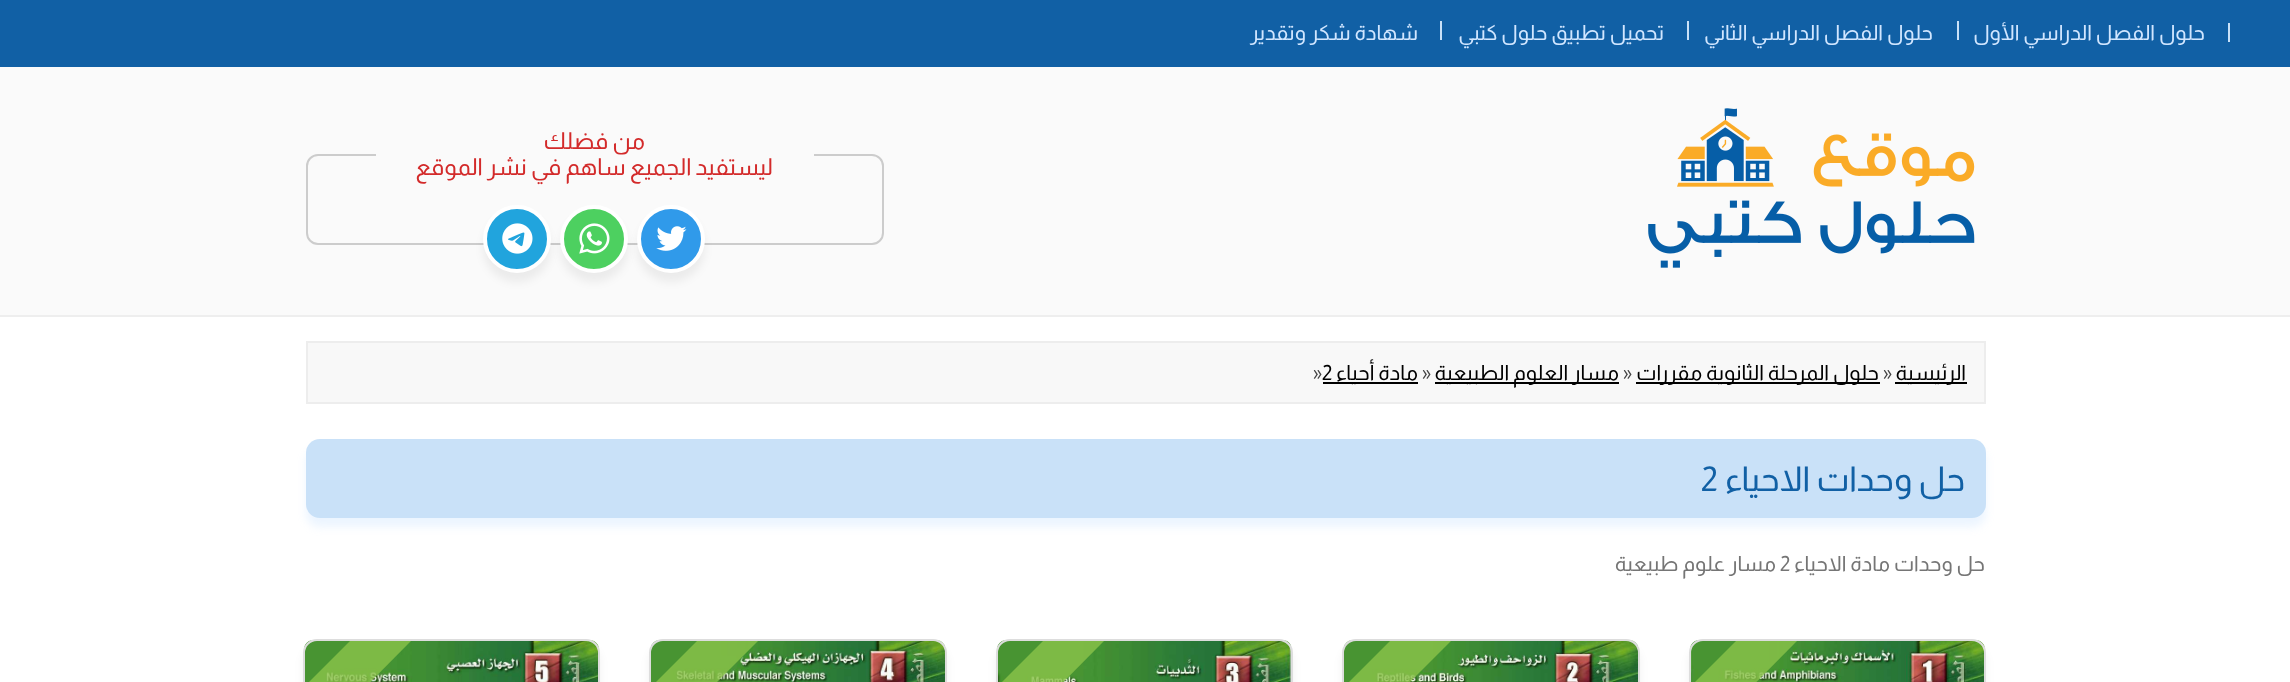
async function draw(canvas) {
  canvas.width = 2290;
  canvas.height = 682;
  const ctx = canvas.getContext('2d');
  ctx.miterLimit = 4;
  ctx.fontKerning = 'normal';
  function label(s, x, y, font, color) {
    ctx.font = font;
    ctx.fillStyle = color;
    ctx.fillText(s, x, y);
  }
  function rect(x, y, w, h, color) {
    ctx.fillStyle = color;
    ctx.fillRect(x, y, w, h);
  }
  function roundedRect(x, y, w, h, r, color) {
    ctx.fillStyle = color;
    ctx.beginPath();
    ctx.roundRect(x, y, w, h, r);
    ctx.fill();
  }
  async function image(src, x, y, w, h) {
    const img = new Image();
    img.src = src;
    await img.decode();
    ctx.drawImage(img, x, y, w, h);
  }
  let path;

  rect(0, 0, 2290, 682, '#fff');
  rect(0, 0, 2290, 67, '#1160a5');
  rect(2228, 23, 2, 19, '#c9e1f8');
  ctx.direction = 'rtl';
  label('حلول الفصل الدراسي الأول', 2205, 40, '21px Almarai', '#d1e6ff');
  rect(1957, 21, 2, 19, '#c9e1f8');
  label('حلول الفصل الدراسي الثاني', 1933, 40, '21px Almarai', '#d1e6ff');
  rect(1687, 21, 2, 19, '#c9e1f8');
  label('تحميل تطبيق حلول كتبي', 1664, 40, '21px Almarai', '#d1e6ff');
  rect(1440, 21, 2, 19, '#c9e1f8');
  label('شهادة شكر وتقدير', 1418, 40, '21px Almarai', '#d1e6ff');
  rect(0, 67, 2290, 248, '#fafafa');
  rect(0, 315, 2290, 2, '#eee');
  await image('assets/img1.png', 1648, 108, 327, 160);
  ctx.beginPath();
  ctx.roundRect(307, 155, 576, 89, 11);
  ctx.strokeStyle = '#ccc';
  ctx.lineWidth = 2;
  ctx.stroke();
  rect(376, 154, 438, 2, '#fafafa');
  label('من فضلك', 645, 149, '23.25px Almarai', '#d32a2a');
  label('ليستفيد الجميع ساهم في نشر الموقع', 773, 175, '23.25px Almarai', '#d32a2a');
  ctx.fillStyle = '#0000000f';
  ctx.filter = 'blur(4.5px)';
  ctx.beginPath();
  ctx.roundRect(637, 214, 68, 68, 34);
  ctx.fill();
  ctx.filter = 'none';
  ctx.fillStyle = '#309aea';
  ctx.beginPath();
  ctx.arc(671, 239, 32, 0, 2 * Math.PI);
  ctx.fill();
  ctx.strokeStyle = '#fff';
  ctx.lineWidth = 4;
  ctx.stroke();
  await image('assets/img2.png', 656, 226, 31, 25);
  ctx.fillStyle = '#0000000f';
  ctx.filter = 'blur(4.5px)';
  ctx.beginPath();
  ctx.roundRect(560, 214, 68, 68, 34);
  ctx.fill();
  ctx.filter = 'none';
  ctx.fillStyle = '#4dd060';
  ctx.beginPath();
  ctx.arc(594, 239, 32, 0, 2 * Math.PI);
  ctx.fill();
  ctx.stroke();
  await image('assets/img3.png', 579, 223, 31, 31);
  ctx.fillStyle = '#0000000f';
  ctx.filter = 'blur(4.5px)';
  ctx.beginPath();
  ctx.roundRect(483, 214, 68, 68, 34);
  ctx.fill();
  ctx.filter = 'none';
  ctx.fillStyle = '#21a4dd';
  ctx.beginPath();
  ctx.arc(517, 239, 32, 0, 2 * Math.PI);
  ctx.fill();
  ctx.stroke();
  await image('assets/img4.png', 502, 223, 31, 31);
  ctx.fillStyle = '#f8f8f8';
  ctx.beginPath();
  ctx.rect(307, 342, 1678, 61);
  ctx.fill();
  ctx.strokeStyle = '#ededed';
  ctx.lineWidth = 2;
  ctx.stroke();
  rect(1895, 382, 72, 2, '#000');
  label('الرئيسية', 1966, 380, '21px Almarai', '#000');
  ctx.direction = 'ltr';
  label('»', 1883, 380, '21px Almarai', '#444');
  rect(1636, 382, 244, 2, '#000');
  ctx.direction = 'rtl';
  label('حلول المرحلة الثانوية مقررات', 1879, 380, '21px Almarai', '#000');
  ctx.direction = 'ltr';
  label('»', 1623, 380, '21px Almarai', '#444');
  rect(1435, 382, 184, 2, '#000');
  ctx.direction = 'rtl';
  label('مسار العلوم الطبيعية', 1619, 380, '21px Almarai', '#000');
  ctx.direction = 'ltr';
  label('»', 1422, 380, '21px Almarai', '#444');
  rect(1323, 382, 95, 2, '#000');
  ctx.direction = 'rtl';
  label('مادة أحياء', 1418, 380, '21px Almarai', '#000');
  ctx.direction = 'ltr';
  label('2', 1322, 380, '21px Almarai', '#000');
  label('»', 1313, 380, '21px Almarai', '#444');
  ctx.fillStyle = '#a0cdff33';
  ctx.filter = 'blur(4.5px)';
  ctx.beginPath();
  ctx.roundRect(306, 448, 1680, 79, 14);
  ctx.fill();
  ctx.filter = 'none';
  roundedRect(306, 439, 1680, 79, 14, '#c9e1f8');
  ctx.direction = 'rtl';
  label('حل وحدات الاحياء', 1965, 491, '34.25px Almarai', '#1160a5');
  ctx.direction = 'ltr';
  label('2', 1701, 491, '34.25px Almarai', '#1160a5');
  ctx.direction = 'rtl';
  label('حل وحدات مادة الاحياء', 1985, 571, '21px Almarai', '#757575');
  ctx.direction = 'ltr';
  label('2', 1780, 571, '21px Almarai', '#757575');
  ctx.direction = 'rtl';
  label('مسار علوم طبيعية', 1776, 571, '21px Almarai', '#757575');
  ctx.fillStyle = '#0000000f';
  ctx.filter = 'blur(4.5px)';
  ctx.beginPath();
  ctx.roundRect(1689, 648, 297, 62, 14);
  ctx.fill();
  ctx.filter = 'none';
  await image('assets/img5.png', 1690, 640, 295, 42);
  ctx.beginPath();
  ctx.roundRect(1690, 640, 295, 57, 13);
  ctx.strokeStyle = '#ddd';
  ctx.stroke();
  ctx.fillStyle = '#8bc34acc';
  path = new Path2D('M1797 641L1691 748V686L1736 641Z');
  ctx.fill(path);
  ctx.fillStyle = '#0000000f';
  ctx.filter = 'blur(4.5px)';
  ctx.beginPath();
  ctx.roundRect(1342, 648, 298, 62, 14);
  ctx.fill();
  ctx.filter = 'none';
  await image('assets/img6.png', 1344, 640, 294, 42);
  ctx.beginPath();
  ctx.roundRect(1343, 640, 296, 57, 13);
  ctx.stroke();
  ctx.fillStyle = '#8bc34acc';
  path = new Path2D('M1451 641L1344 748V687L1390 641Z');
  ctx.fill(path);
  ctx.fillStyle = '#0000000f';
  ctx.filter = 'blur(4.5px)';
  ctx.beginPath();
  ctx.roundRect(996, 648, 297, 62, 14);
  ctx.fill();
  ctx.filter = 'none';
  await image('assets/img7.png', 997, 640, 295, 42);
  ctx.beginPath();
  ctx.roundRect(997, 640, 295, 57, 13);
  ctx.stroke();
  ctx.fillStyle = '#8bc34acc';
  path = new Path2D('M1104 641L998 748V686L1043 641Z');
  ctx.fill(path);
  ctx.fillStyle = '#0000000f';
  ctx.filter = 'blur(4.5px)';
  ctx.beginPath();
  ctx.roundRect(649, 648, 298, 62, 14);
  ctx.fill();
  ctx.filter = 'none';
  await image('assets/img8.png', 651, 640, 294, 42);
  ctx.beginPath();
  ctx.roundRect(650, 640, 296, 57, 13);
  ctx.stroke();
  ctx.fillStyle = '#8bc34acc';
  path = new Path2D('M758 641L651 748V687L697 641Z');
  ctx.fill(path);
  ctx.fillStyle = '#0000000f';
  ctx.filter = 'blur(4.5px)';
  ctx.beginPath();
  ctx.roundRect(303, 648, 297, 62, 14);
  ctx.fill();
  ctx.filter = 'none';
  await image('assets/img9.png', 304, 640, 295, 42);
  ctx.beginPath();
  ctx.roundRect(304, 640, 295, 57, 13);
  ctx.stroke();
  ctx.fillStyle = '#8bc34acc';
  path = new Path2D('M411 641L305 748V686L350 641Z');
  ctx.fill(path);
}

draw(document.querySelector('canvas'));
